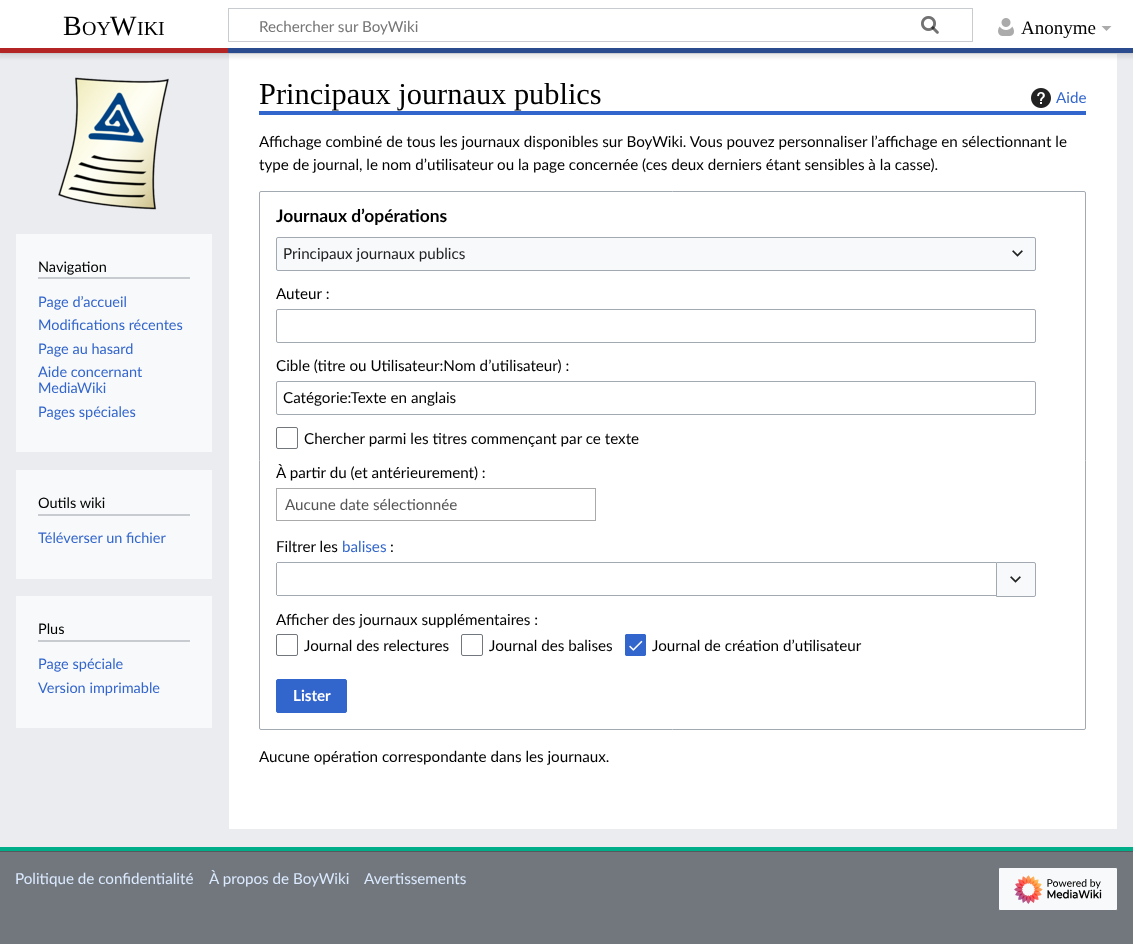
async function draw(canvas) {
  canvas.width = 1133;
  canvas.height = 944;
  const ctx = canvas.getContext('2d');
  ctx.miterLimit = 4;
  ctx.fontKerning = 'normal';
  function label(s, x, y, font, color) {
    ctx.font = font;
    ctx.fillStyle = color;
    ctx.fillText(s, x, y);
  }
  function rect(x, y, w, h, color) {
    ctx.fillStyle = color;
    ctx.fillRect(x, y, w, h);
  }
  function roundedRect(x, y, w, h, r, color) {
    ctx.fillStyle = color;
    ctx.beginPath();
    ctx.roundRect(x, y, w, h, r);
    ctx.fill();
  }
  async function image(src, x, y, w, h) {
    const img = new Image();
    img.src = src;
    await img.decode();
    ctx.drawImage(img, x, y, w, h);
  }
  let path;

  rect(0, 0, 1133, 944, '#72777d');
  rect(0, 53, 1133, 794, '#eaecf0');
  rect(229, 54, 888, 775, '#fff');
  ctx.fillStyle = '#00000033';
  ctx.filter = 'blur(1px)';
  ctx.beginPath();
  ctx.rect(0, 48, 1133, 5);
  ctx.fill();
  ctx.filter = 'none';
  ctx.fillStyle = '#00000012';
  ctx.filter = 'blur(1.5px)';
  ctx.beginPath();
  ctx.rect(-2, 49, 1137, 9);
  ctx.fill();
  ctx.filter = 'none';
  rect(0, 0, 1133, 48, '#fff');
  label('B', 63, 35, '28px Liberation Serif', '#000');
  label('OY', 82, 35, '20px Liberation Serif', '#000');
  label('W', 110, 35, '28px Liberation Serif', '#000');
  label('IKI', 137, 35, '20px Liberation Serif', '#000');
  ctx.strokeStyle = '#c8ccd1';
  ctx.strokeRect(228.5, 8.5, 744, 33);
  await image('assets/img1.png', 921, 16, 18, 18);
  label('Rechercher sur BoyWiki', 259, 32, '15.2px Lato', '#757575');
  await image('assets/img2.png', 921, 16, 18, 18);
  await image('assets/img3.png', 998, 18, 16, 18);
  label('Anonyme', 1021, 34, '19px Liberation Serif', '#000');
  ctx.fillStyle = '#ababab';
  path = new Path2D('M1111.5 26L1106.5 31L1101.5 26Z');
  ctx.fill(path);
  rect(0, 48, 228, 5, '#b32424');
  rect(228, 48, 905, 5, '#2a4b8d');
  rect(0, 847, 1133, 4, '#00af89');
  await image('assets/img4.png', 58, 77, 111, 133);
  rect(16, 234, 196, 218, '#f8f9fa');
  rect(38, 277, 152, 2, '#c8ccd1');
  label('Navigation', 38, 272, '14.5px Lato', '#000');
  label('Page d’accueil', 38, 307, '14.5px Lato', '#36c');
  label('Modifications récentes', 38, 330, '14.5px Lato', '#36c');
  label('Page au hasard', 38, 354, '14.5px Lato', '#36c');
  label('Aide concernant', 38, 377, '14.5px Lato', '#36c');
  label('MediaWiki', 38, 393, '14.5px Lato', '#36c');
  label('Pages spéciales', 38, 417, '14.5px Lato', '#36c');
  rect(16, 470, 196, 109, '#f8f9fa');
  rect(38, 514, 152, 2, '#c8ccd1');
  label('Outils wiki', 38, 508, '14.5px Lato', '#000');
  label('Téléverser un fichier', 38, 543, '14.5px Lato', '#36c');
  rect(259, 111, 827, 4, '#36c');
  label('Principaux journaux publics', 259, 104, '30.4px Liberation Serif', '#000');
  await image('assets/img5.png', 1031, 88, 20, 20);
  label('Aide', 1056, 103, '15.2px Lato', '#36c');
  label('Affichage combiné de tous les journaux disponibles sur BoyWiki. Vous pouvez personnaliser l’affichage en sélectionnant le', 259, 147, '15.2px Lato', '#000');
  label('type de journal, le nom d’utilisateur ou la page concernée (ces deux derniers étant sensibles à la casse).', 259, 170, '15.2px Lato', '#000');
  ctx.beginPath();
  ctx.roundRect(259.5, 191.5, 826, 538, 1.5);
  ctx.strokeStyle = '#a2a9b1';
  ctx.stroke();
  label('Journaux d’opérations', 276, 222, 'bold 17.4px Lato', '#000');
  ctx.fillStyle = '#f8f9fa';
  ctx.beginPath();
  ctx.roundRect(276.5, 237.5, 759, 33, 1.5);
  ctx.fill();
  ctx.stroke();
  label('Principaux journaux publics', 283, 259, '15.2px Lato', '#202122');
  await image('assets/img6.png', 1012, 250, 11, 7);
  label('Auteur :', 276, 299, '15.2px Lato', '#000');
  ctx.beginPath();
  ctx.roundRect(276.5, 309.5, 759, 33, 1.5);
  ctx.stroke();
  label('Cible (titre ou Utilisateur:Nom d’utilisateur) :', 276, 371, '15.2px Lato', '#000');
  ctx.beginPath();
  ctx.roundRect(276.5, 381.5, 759, 33, 1.5);
  ctx.stroke();
  label('Catégorie:Texte en anglais', 283, 403, '15.2px Lato', '#000');
  ctx.beginPath();
  ctx.roundRect(276.5, 427.5, 21, 21, 1.5);
  ctx.strokeStyle = '#72777d';
  ctx.stroke();
  label('Chercher parmi les titres commençant par ce texte', 304, 444, '15.2px Lato', '#000');
  label('À partir du (et antérieurement) :', 276, 478, '15.2px Lato', '#000');
  ctx.strokeStyle = '#aaa';
  ctx.strokeRect(276.5, 488.5, 319, 32);
  label('Aucune date sélectionnée', 285, 510, '15.2px Lato', '#555');
  label('Filtrer les', 276, 552, '15.2px Lato', '#000');
  label('balises', 342, 552, '15.2px Lato', '#36c');
  label(':', 390, 552, '15.2px Lato', '#000');
  rect(277, 562, 719, 1, '#a2a9b1');
  rect(277, 595, 719, 1, '#a2a9b1');
  rect(276, 563, 1, 32, '#a2a9b1');
  ctx.fillStyle = '#f8f9fa';
  ctx.beginPath();
  ctx.roundRect(996.5, 562.5, 39, 34, [0, 1.5, 1.5, 0]);
  ctx.fill();
  ctx.strokeStyle = '#a2a9b1';
  ctx.stroke();
  await image('assets/img6.png', 1010, 576, 11, 7);
  label('Afficher des journaux supplémentaires :', 276, 625, '15.2px Lato', '#000');
  ctx.beginPath();
  ctx.roundRect(276.5, 634.5, 21, 21, 1.5);
  ctx.strokeStyle = '#72777d';
  ctx.stroke();
  label('Journal des relectures', 304, 651, '15.2px Lato', '#000');
  ctx.beginPath();
  ctx.roundRect(461.5, 634.5, 21, 21, 1.5);
  ctx.stroke();
  label('Journal des balises', 489, 651, '15.2px Lato', '#000');
  roundedRect(625, 634, 21, 22, 2, '#36c');
  await image('assets/img7.png', 629, 640, 14, 11);
  ctx.beginPath();
  ctx.roundRect(625.5, 634.5, 20, 21, 1.5);
  ctx.strokeStyle = '#36c';
  ctx.stroke();
  label('Journal de création d’utilisateur', 652, 651, '15.2px Lato', '#000');
  ctx.fillStyle = '#36c';
  ctx.beginPath();
  ctx.roundRect(276.5, 679.5, 70, 33, 1.5);
  ctx.fill();
  ctx.stroke();
  label('Lister', 293, 701, 'bold 15.2px Lato', '#fff');
  label('Aucune opération correspondante dans les journaux.', 259, 762, '15.2px Lato', '#000');
  rect(16, 596, 196, 132, '#f8f9fa');
  rect(38, 640, 152, 2, '#c8ccd1');
  label('Plus', 38, 634, '14.5px Lato', '#000');
  label('Page spéciale', 38, 669, '14.5px Lato', '#36c');
  label('Version imprimable', 38, 693, '14.5px Lato', '#36c');
  rect(0, 851, 1133, 1, '#54595d');
  label('Politique de confidentialité', 15, 884, '15.2px Lato', '#dbeaff');
  label('À propos de BoyWiki', 209, 884, '15.2px Lato', '#dbeaff');
  label('Avertissements', 364, 884, '15.2px Lato', '#dbeaff');
  ctx.fillStyle = '#f8f9fa';
  ctx.beginPath();
  ctx.roundRect(998.5, 867.5, 119, 43, 1.5);
  ctx.fill();
  ctx.strokeStyle = '#72777d';
  ctx.stroke();
  await image('assets/img8.png', 1014, 875, 88, 29);
}

draw(document.querySelector('canvas'));
